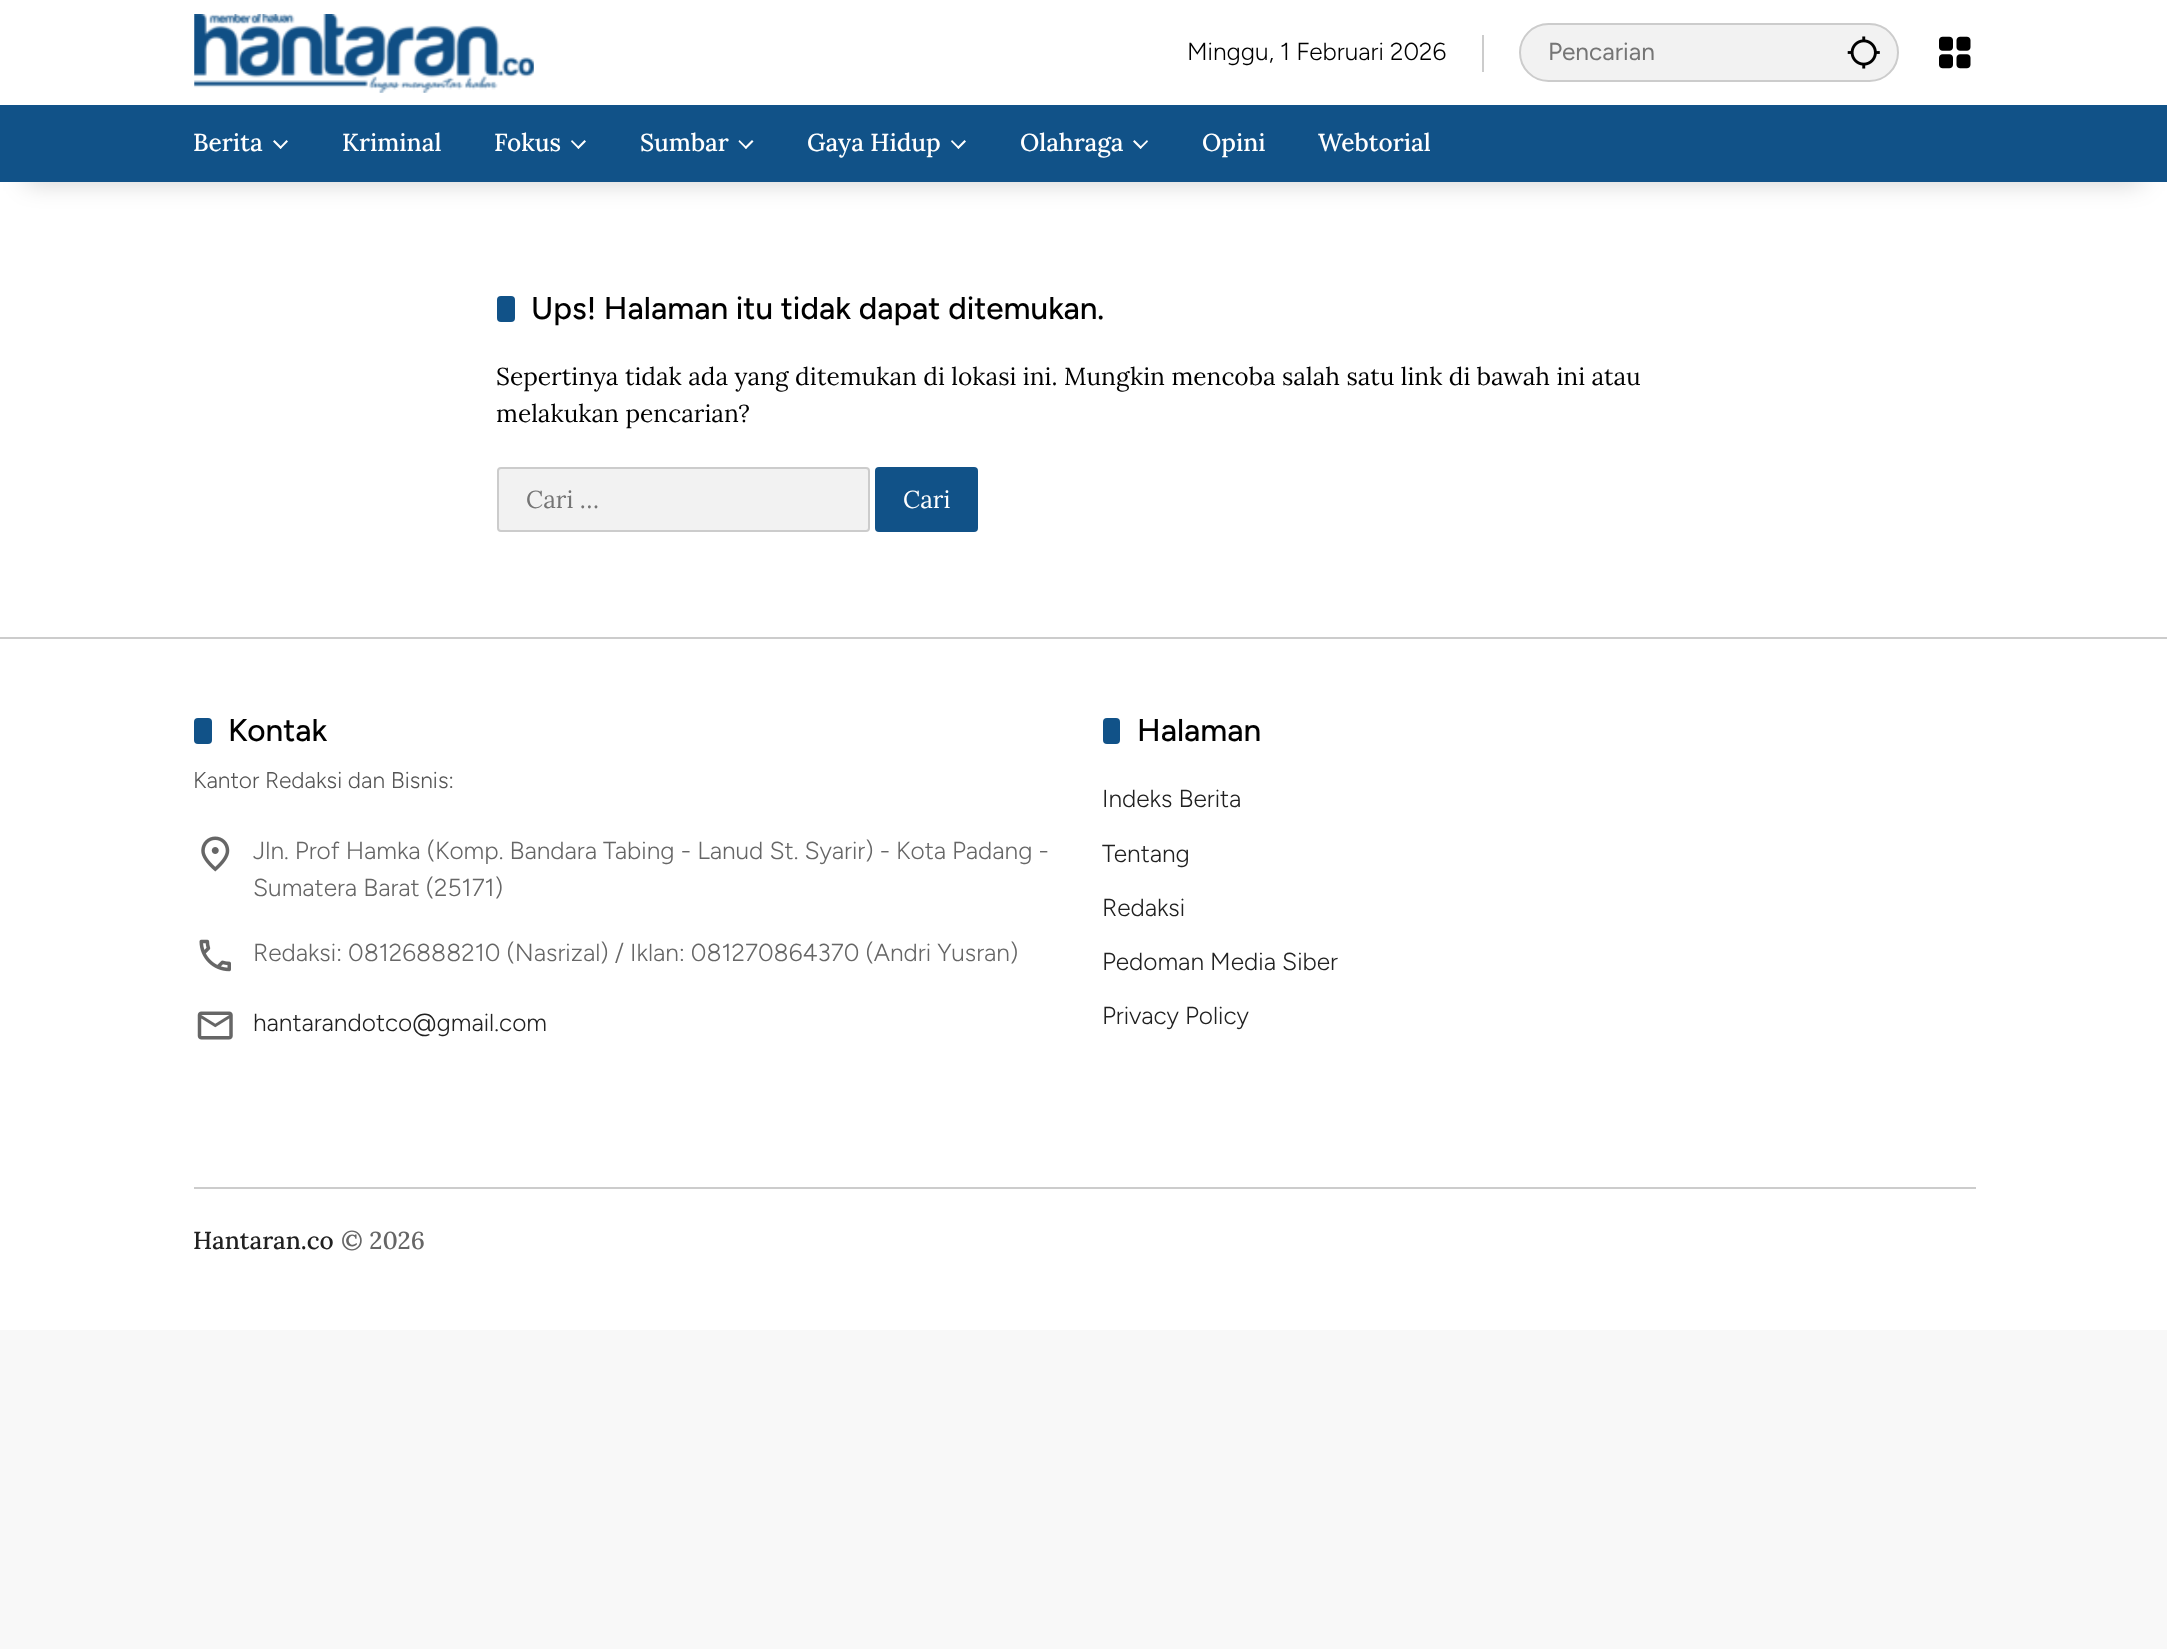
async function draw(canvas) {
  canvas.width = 2167;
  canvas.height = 1649;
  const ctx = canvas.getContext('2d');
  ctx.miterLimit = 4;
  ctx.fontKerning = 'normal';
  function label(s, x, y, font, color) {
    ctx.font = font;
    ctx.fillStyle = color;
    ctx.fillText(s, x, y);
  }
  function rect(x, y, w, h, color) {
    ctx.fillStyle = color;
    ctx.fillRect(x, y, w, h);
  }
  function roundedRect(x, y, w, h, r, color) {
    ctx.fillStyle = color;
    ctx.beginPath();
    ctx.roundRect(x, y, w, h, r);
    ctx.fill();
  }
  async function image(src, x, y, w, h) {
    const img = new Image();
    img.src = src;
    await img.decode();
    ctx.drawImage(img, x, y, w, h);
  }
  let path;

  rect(0, 0, 2167, 1649, '#f8f8f8');
  rect(0, 0, 2167, 1330, '#fff');
  await image('assets/img1.png', 194, 14, 340, 79);
  rect(1482, 35, 2, 37, '#ccc');
  label('Minggu, 1 Februari 2026', 1187, 60, '300 24.5px Figtree', '#000');
  ctx.fillStyle = '#f2f2f2';
  ctx.beginPath();
  ctx.roundRect(1520, 24, 378, 57, 28.5);
  ctx.fill();
  ctx.strokeStyle = '#ccc';
  ctx.lineWidth = 2;
  ctx.stroke();
  label('Pencarian', 1548, 60, '24.5px Figtree', '#757575');
  await image('assets/img2.png', 1847, 36, 33, 33);
  await image('assets/img3.png', 1939, 36, 32, 33);
  ctx.fillStyle = '#00000033';
  ctx.filter = 'blur(13px)';
  ctx.beginPath();
  ctx.rect(26, 158, 2116, 24);
  ctx.fill();
  ctx.filter = 'none';
  rect(0, 105, 2167, 77, '#115288');
  label('Berita', 193, 151, '500 24.5px Lora', '#fff');
  path = new Path2D('M286.5 140L288 141.5L280.5 149L279.5 147.5Z');
  ctx.fill(path);
  path = new Path2D('M274.5 140L282 147.5L280.5 149L273 141.5Z');
  ctx.fill(path);
  label('Kriminal', 342, 151, '500 24.5px Lora', '#fff');
  label('Fokus', 494, 151, '500 24.5px Lora', '#fff');
  path = new Path2D('M584.5 140L586 141.5L578.5 149L577 147.5Z');
  ctx.fill(path);
  path = new Path2D('M572 140L579.5 147.5L578.5 149L571 141.5Z');
  ctx.fill(path);
  label('Sumbar', 640, 151, '500 24.5px Lora', '#fff');
  path = new Path2D('M752 140L753.5 141.5L746 149L744.5 147.5Z');
  ctx.fill(path);
  path = new Path2D('M739.5 140L747 147.5L746 149L738.5 141.5Z');
  ctx.fill(path);
  label('Gaya Hidup', 807, 151, '500 24.5px Lora', '#fff');
  path = new Path2D('M964.5 140L966 141.5L958.5 149L957 147.5Z');
  ctx.fill(path);
  path = new Path2D('M952 140L959.5 147.5L958.5 149L951 141.5Z');
  ctx.fill(path);
  label('Olahraga', 1020, 151, '500 24.5px Lora', '#fff');
  path = new Path2D('M1147 140L1148 141.5L1140.5 149L1139.5 147.5Z');
  ctx.fill(path);
  path = new Path2D('M1134.5 140L1142 147.5L1140.5 149L1133 141.5Z');
  ctx.fill(path);
  label('Opini', 1202, 151, '500 24.5px Lora', '#fff');
  label('Webtorial', 1318, 151, '500 24.5px Lora', '#fff');
  roundedRect(497, 296, 18, 26, 4, '#115288');
  label('Ups! Halaman itu tidak dapat ditemukan.', 531, 319, '500 31.5px Figtree', '#000');
  label('Sepertinya tidak ada yang ditemukan di lokasi ini. Mungkin mencoba salah satu link di bawah ini atau', 496, 385, '24.5px Lora', '#000');
  label('melakukan pencarian?', 496, 422, '24.5px Lora', '#000');
  ctx.fillStyle = '#f2f2f2';
  ctx.beginPath();
  ctx.roundRect(498, 468, 371, 63, 3);
  ctx.fill();
  ctx.stroke();
  label('Cari …', 526, 508, '24.5px Lora', '#757575');
  roundedRect(875, 467, 103, 65, 4, '#115288');
  label('Cari', 903, 508, '24.5px Lora', '#fff');
  rect(0, 637, 2167, 2, '#ccc');
  roundedRect(194, 718, 18, 26, 4, '#115288');
  label('Kontak', 228, 741, '500 31.5px Figtree', '#000');
  label('Kantor Redaksi dan Bisnis:', 193, 788, '300 22.75px Figtree', '#555');
  await image('assets/img4.png', 201, 836, 29, 36);
  label('Jln. Prof Hamka (Komp. Bandara Tabing - Lanud St. Syarir) - Kota Padang -', 253, 859, '300 24.5px Figtree', '#666');
  label('Sumatera Barat (25171)', 253, 896, '300 24.5px Figtree', '#666');
  await image('assets/img5.png', 199, 939, 32, 33);
  label('Redaksi: 08126888210 (Nasrizal) / Iklan: 081270864370 (Andri Yusran)', 253, 961, '300 24.5px Figtree', '#666');
  await image('assets/img6.png', 197, 1011, 36, 29);
  label('hantarandotco@gmail.com', 253, 1031, '300 24.5px Figtree', '#212121');
  roundedRect(1103, 718, 17, 26, 4, '#115288');
  label('Halaman', 1137, 741, '500 31.5px Figtree', '#000');
  label('Indeks Berita', 1102, 807, '300 24.5px Figtree', '#212121');
  label('Tentang', 1102, 862, '300 24.5px Figtree', '#212121');
  label('Redaksi', 1102, 916, '300 24.5px Figtree', '#212121');
  label('Pedoman Media Siber', 1102, 970, '300 24.5px Figtree', '#212121');
  label('Privacy Policy', 1102, 1024, '300 24.5px Figtree', '#212121');
  rect(194, 1187, 1782, 2, '#ccc');
  label('Hantaran.co', 193, 1249, '500 24.5px Lora', '#212121');
  label('© 2026', 341, 1249, '500 24.5px Lora', '#666');
}

draw(document.querySelector('canvas'));
